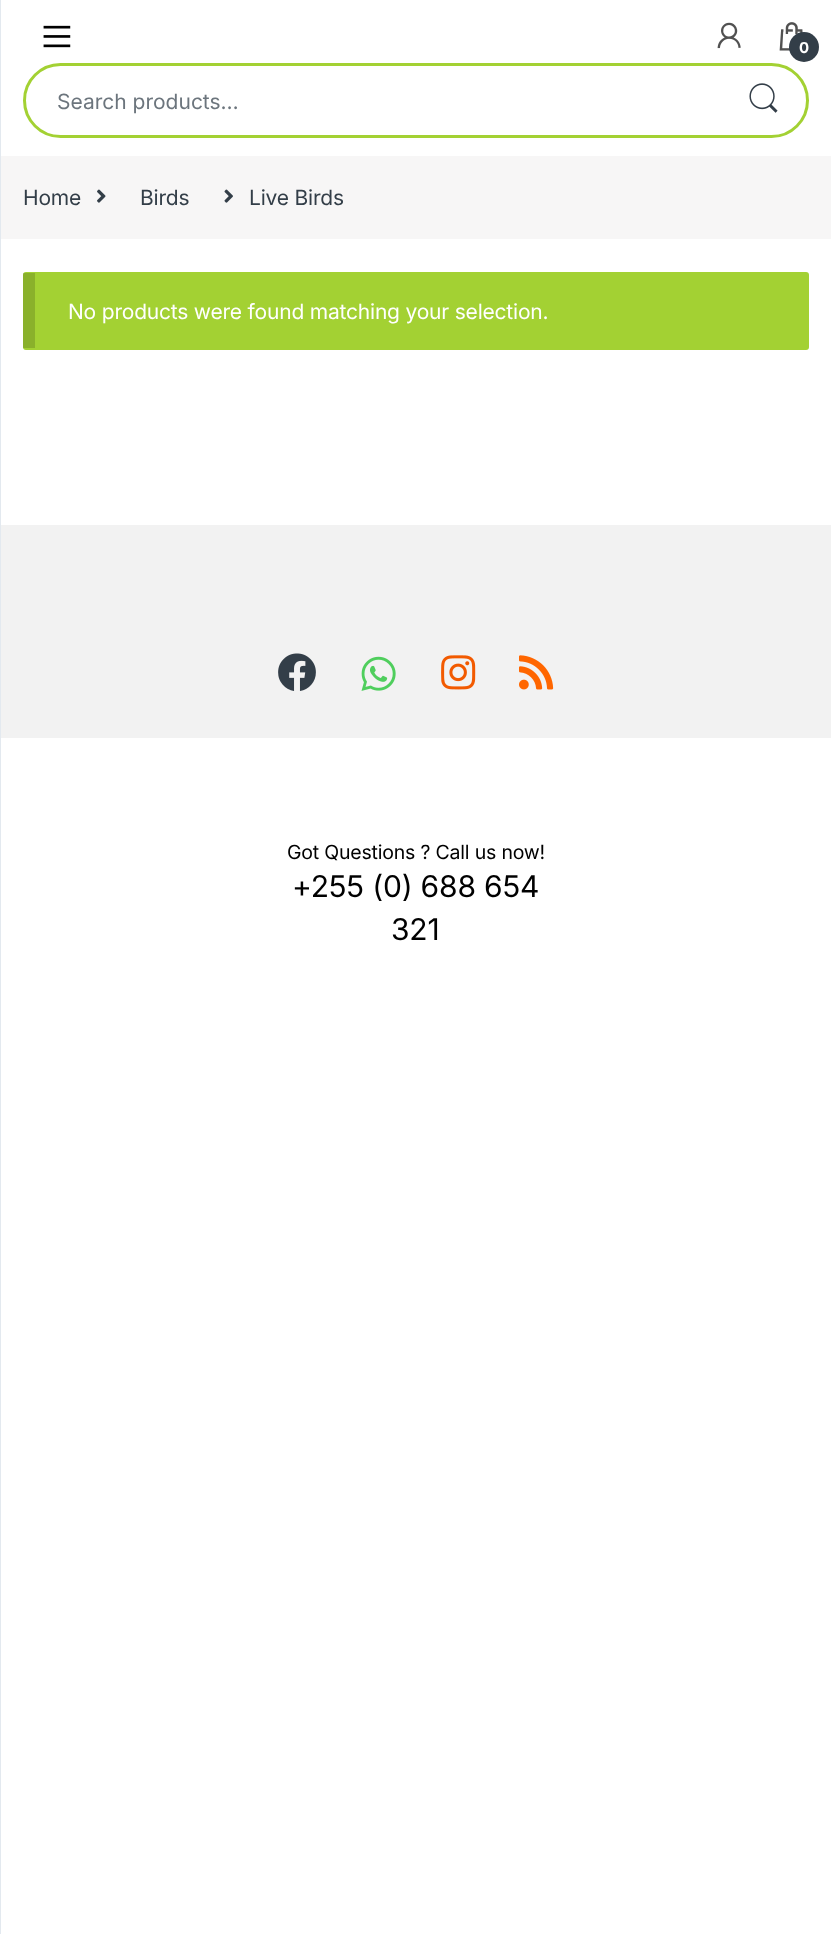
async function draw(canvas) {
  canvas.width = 831;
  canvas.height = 1934;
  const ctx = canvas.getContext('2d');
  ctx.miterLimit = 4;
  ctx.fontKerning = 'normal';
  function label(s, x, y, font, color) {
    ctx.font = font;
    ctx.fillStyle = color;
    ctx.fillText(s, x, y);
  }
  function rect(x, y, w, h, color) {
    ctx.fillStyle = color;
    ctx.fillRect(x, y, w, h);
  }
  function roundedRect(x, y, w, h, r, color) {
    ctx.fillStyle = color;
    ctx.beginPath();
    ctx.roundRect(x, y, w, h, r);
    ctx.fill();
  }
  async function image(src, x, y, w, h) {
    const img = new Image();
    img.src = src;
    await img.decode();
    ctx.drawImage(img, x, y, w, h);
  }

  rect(0, 0, 831, 1934, '#fff');
  rect(0, 0, 1, 1934, '#e3e9ef');
  await image('assets/img1.png', 43, 25, 28, 23);
  await image('assets/img2.png', 717, 22, 24, 27);
  await image('assets/img3.png', 779, 22, 24, 29);
  ctx.fillStyle = '#333e48';
  ctx.beginPath();
  ctx.arc(804, 47, 15, 0, 2 * Math.PI);
  ctx.fill();
  ctx.letterSpacing = '-0.2px';
  label('0', 799, 53, 'bold 15px Inter', '#fff');
  ctx.beginPath();
  ctx.roundRect(24.5, 64.5, 783, 72, 36);
  ctx.strokeStyle = '#a3d133';
  ctx.lineWidth = 3;
  ctx.stroke();
  ctx.letterSpacing = '0px';
  label('Search products…', 57, 109, '21px Inter', '#6c757d');
  await image('assets/img4.png', 749, 83, 29, 30);
  rect(1, 156, 830, 83, '#f7f6f6');
  ctx.letterSpacing = '-0.2px';
  label('Home', 23, 205, '21px Inter', '#333e48');
  await image('assets/img5.png', 97, 189, 9, 14);
  label('Birds', 140, 205, '21px Inter', '#333e48');
  await image('assets/img6.png', 224, 189, 9, 14);
  label('Live Birds', 249, 205, '21px Inter', '#333e48');
  roundedRect(23, 272, 786, 78, 3, '#a3d133');
  rect(23, 273, 12, 75, '#00000026');
  label('No products were found matching your selection.', 68, 319, '21px Inter', '#fff');
  rect(1, 525, 830, 213, '#f2f2f2');
  await image('assets/img7.png', 278, 653, 38, 38);
  await image('assets/img8.png', 361, 656, 35, 35);
  await image('assets/img9.png', 441, 655, 35, 35);
  await image('assets/img10.png', 519, 655, 35, 35);
  label('Got Questions ? Call us now!', 287, 859, '19.5px Inter', '#000');
  label('+255 (0) 688 654', 292, 897, '30px Inter', '#000');
  label('321', 391, 940, '30px Inter', '#000');
}

draw(document.querySelector('canvas'));
